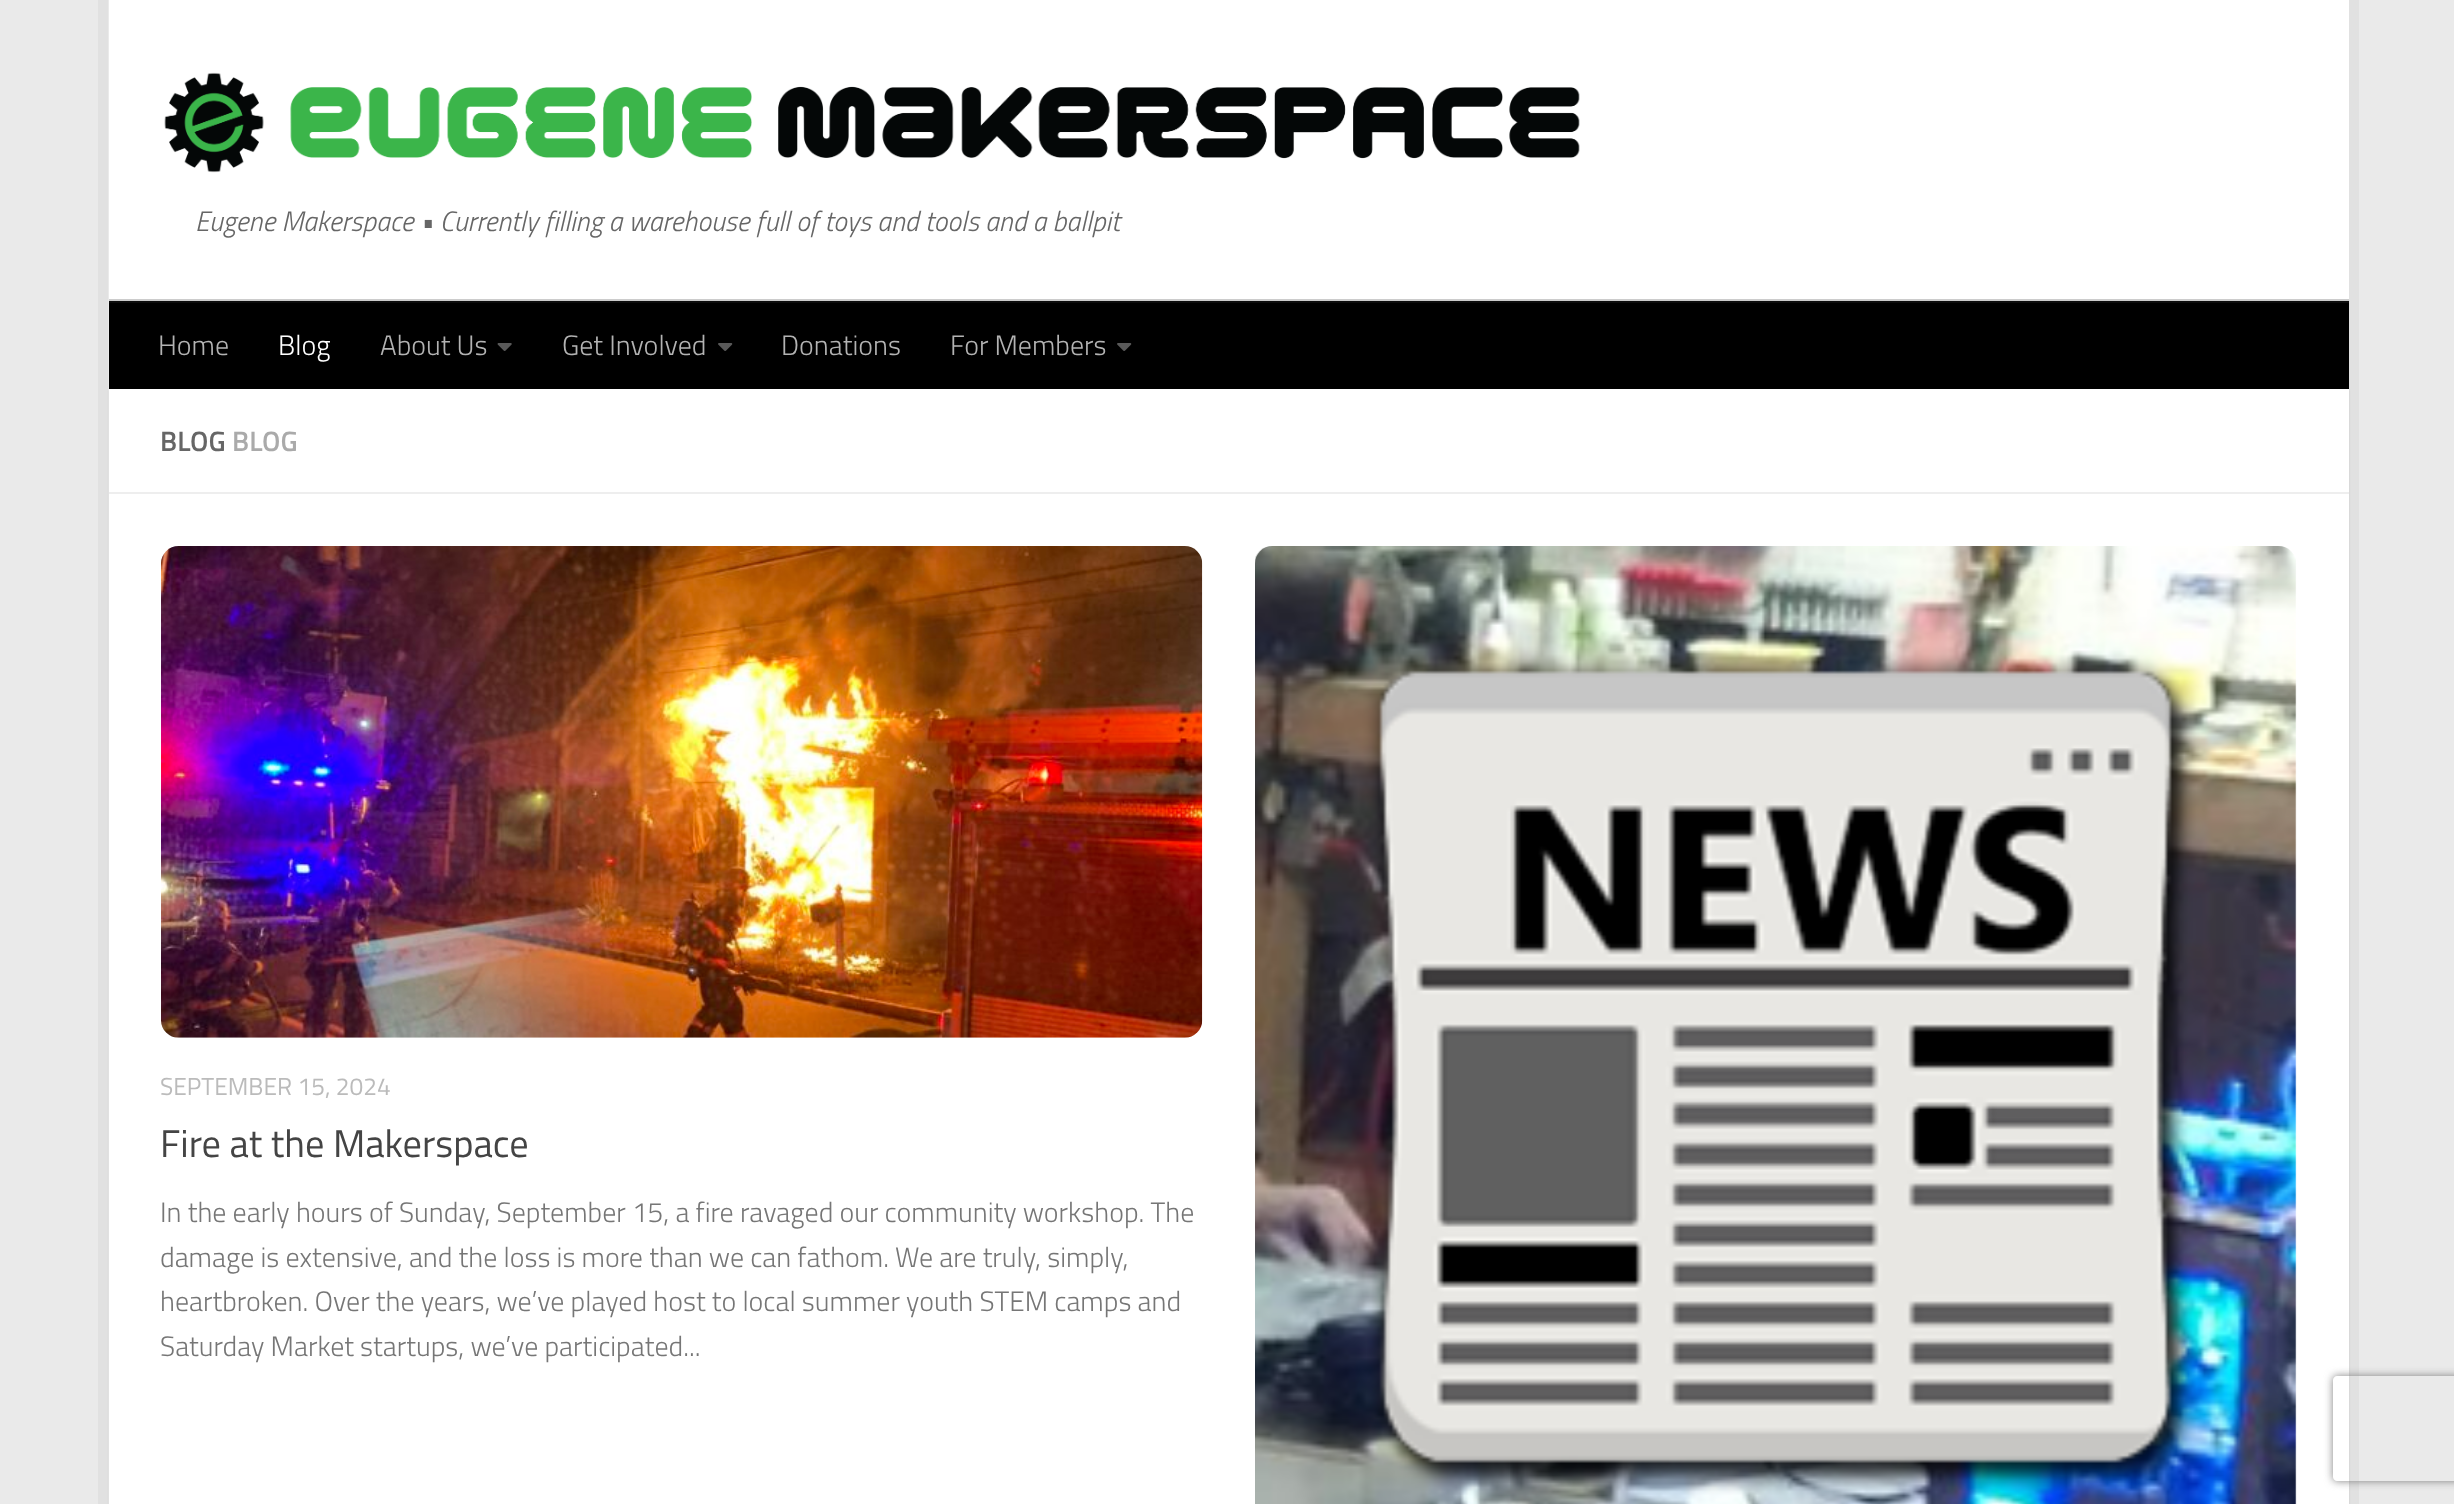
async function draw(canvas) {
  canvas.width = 2454;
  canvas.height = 1504;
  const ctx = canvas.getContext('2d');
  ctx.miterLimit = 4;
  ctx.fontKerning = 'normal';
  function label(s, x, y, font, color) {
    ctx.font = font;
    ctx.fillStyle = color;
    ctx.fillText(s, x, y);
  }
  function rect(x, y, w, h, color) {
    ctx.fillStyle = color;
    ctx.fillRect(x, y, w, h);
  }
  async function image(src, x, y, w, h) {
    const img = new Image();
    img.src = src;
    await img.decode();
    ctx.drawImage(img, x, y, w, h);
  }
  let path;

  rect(0, 0, 2454, 1504, '#eaeaea');
  ctx.fillStyle = '#e1e1e1';
  path = new Path2D('M98 0V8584H2338H108V0Z');
  ctx.fill(path);
  path = new Path2D('M119 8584H2359V0H2348V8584Z');
  ctx.fill(path);
  ctx.fillStyle = '#0000001a';
  ctx.filter = 'blur(1px)';
  ctx.beginPath();
  ctx.rect(109, 390, 2240, 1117);
  ctx.fill();
  ctx.filter = 'none';
  rect(109, 0, 2240, 492, '#fff');
  await image('assets/img1.png', 164, 72, 1416, 101);
  label('Eugene Makerspace • Currently filling a warehouse full of toys and tools and a ballpit', 195, 231, 'italic 300 28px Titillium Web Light', '#666');
  ctx.fillStyle = '#ccc';
  path = new Path2D('M109 299V301H2348V387H2349V299Z');
  ctx.fill(path);
  rect(109, 303, 2240, 86, '#000');
  rect(109, 301, 2240, 2, '#0d0d0d');
  label('Home', 158, 355, '300 28px Titillium Web Light', '#b3b3b3');
  label('Blog', 278, 355, '300 28px Titillium Web Light', '#fff');
  label('About Us', 380, 355, '300 28px Titillium Web Light', '#b3b3b3');
  await image('assets/img2.png', 497, 343, 15, 8);
  label('Get Involved', 562, 355, '300 28px Titillium Web Light', '#b3b3b3');
  await image('assets/img3.png', 718, 343, 15, 8);
  label('Donations', 781, 355, '300 28px Titillium Web Light', '#b3b3b3');
  label('For Members', 950, 355, '300 28px Titillium Web Light', '#b3b3b3');
  await image('assets/img3.png', 1117, 343, 15, 8);
  rect(109, 494, 2240, 1010, '#fff');
  rect(109, 492, 2240, 2, '#eee');
  label('BLOG', 160, 451, '600 28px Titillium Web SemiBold', '#666');
  label('BLOG', 232, 451, '600 28px Titillium Web SemiBold', '#aaa');
  await image('assets/img4.png', 161, 546, 1042, 492);
  label('SEPTEMBER 15, 2024', 160, 1095, '24.5px Titillium Web', '#bbb');
  label('Fire at the Makerspace', 160, 1157, '38.5px Titillium Web', '#444');
  label('In the early hours of Sunday, September 15, a fire ravaged our community workshop. The', 160, 1222, '300 28px Titillium Web Light', '#767676');
  label('damage is extensive, and the loss is more than we can fathom. We are truly, simply,', 160, 1267, '300 28px Titillium Web Light', '#767676');
  label('heartbroken. Over the years, we’ve played host to local summer youth STEM camps and', 160, 1311, '300 28px Titillium Web Light', '#767676');
  label('Saturday Market startups, we’ve participated...', 160, 1356, '300 28px Titillium Web Light', '#767676');
  await image('assets/img5.png', 1255, 546, 1042, 958);
  ctx.save();
  path = new Path2D('M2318 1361H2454V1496H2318ZM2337 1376H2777C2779 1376 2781 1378 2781 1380V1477C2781 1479 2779 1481 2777 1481H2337C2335 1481 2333 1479 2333 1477V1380C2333 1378 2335 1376 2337 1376Z');
  ctx.clip(path, 'evenodd');
  ctx.fillStyle = '#808080';
  ctx.filter = 'blur(4.5px)';
  ctx.beginPath();
  ctx.roundRect(2333, 1376, 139, 105, 4);
  ctx.fill();
  ctx.filter = 'none';
  ctx.restore();
}

draw(document.querySelector('canvas'));
